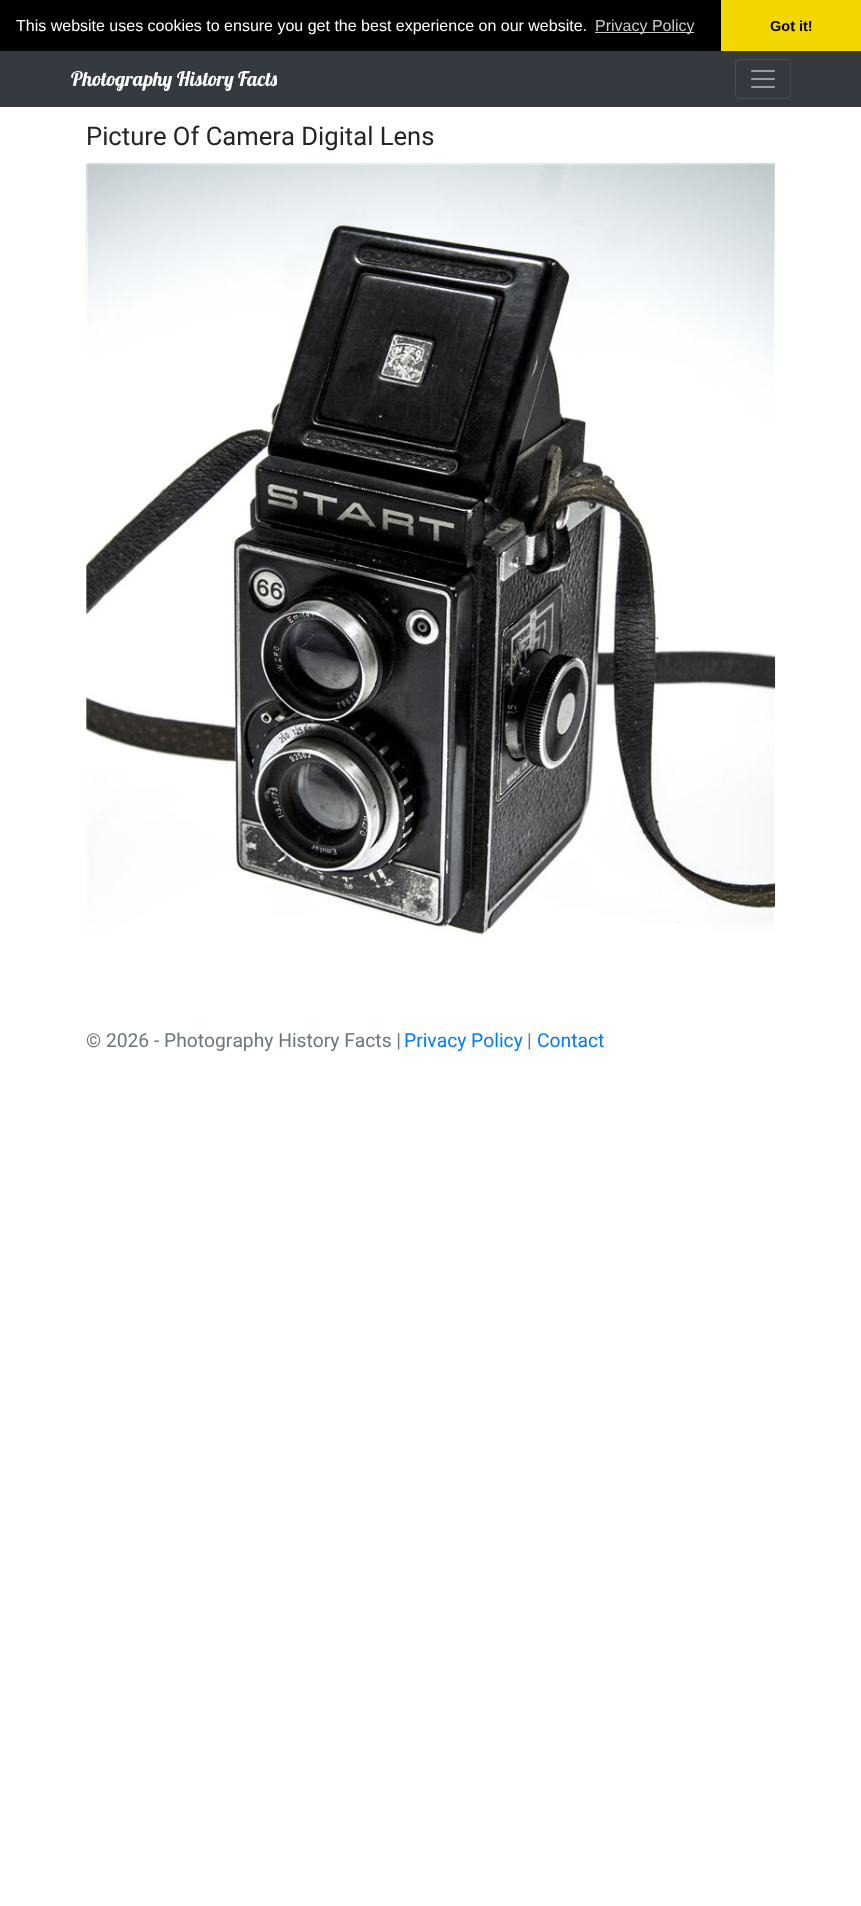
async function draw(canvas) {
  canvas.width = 861;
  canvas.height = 1906;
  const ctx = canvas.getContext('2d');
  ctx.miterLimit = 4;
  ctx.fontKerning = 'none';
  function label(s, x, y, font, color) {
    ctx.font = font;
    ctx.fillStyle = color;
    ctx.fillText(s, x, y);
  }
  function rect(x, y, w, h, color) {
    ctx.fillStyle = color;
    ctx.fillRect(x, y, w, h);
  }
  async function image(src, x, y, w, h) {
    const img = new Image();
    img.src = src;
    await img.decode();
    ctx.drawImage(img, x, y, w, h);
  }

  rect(0, 0, 861, 1906, '#fff');
  rect(0, 0, 721, 51, '#000');
  label('This website uses cookies to ensure you get the best experience on our website.', 16, 31, '16px Liberation Sans', '#fff');
  rect(595, 32, 99, 1, '#ccc');
  label('Privacy Policy', 595, 31, '16px Liberation Sans', '#ccc');
  rect(721, 0, 140, 51, '#f1d600');
  label('Got it!', 770, 31, 'bold 14.5px Liberation Sans', '#000');
  rect(0, 51, 861, 56, '#343a40');
  label('Photography History Facts', 71, 86, '20px Lobster', '#fff');
  ctx.beginPath();
  ctx.roundRect(735.5, 59.5, 55, 39, 3.5);
  ctx.strokeStyle = '#484e53';
  ctx.stroke();
  await image('assets/img1.png', 751, 70, 24, 18);
  label('Picture Of Camera Digital Lens', 86, 145, '25.6px Roboto', '#212529');
  await image('assets/img2.png', 86, 163, 690, 775);
  label('© 2026 - Photography History Facts |', 86, 1047, '19.25px Roboto', '#6c757d');
  label('Privacy Policy', 404, 1047, '19.25px Roboto', '#007bff');
  label('|', 527, 1047, '19.25px Roboto', '#6c757d');
  label('Contact', 537, 1047, '19.25px Roboto', '#007bff');
}

draw(document.querySelector('canvas'));
